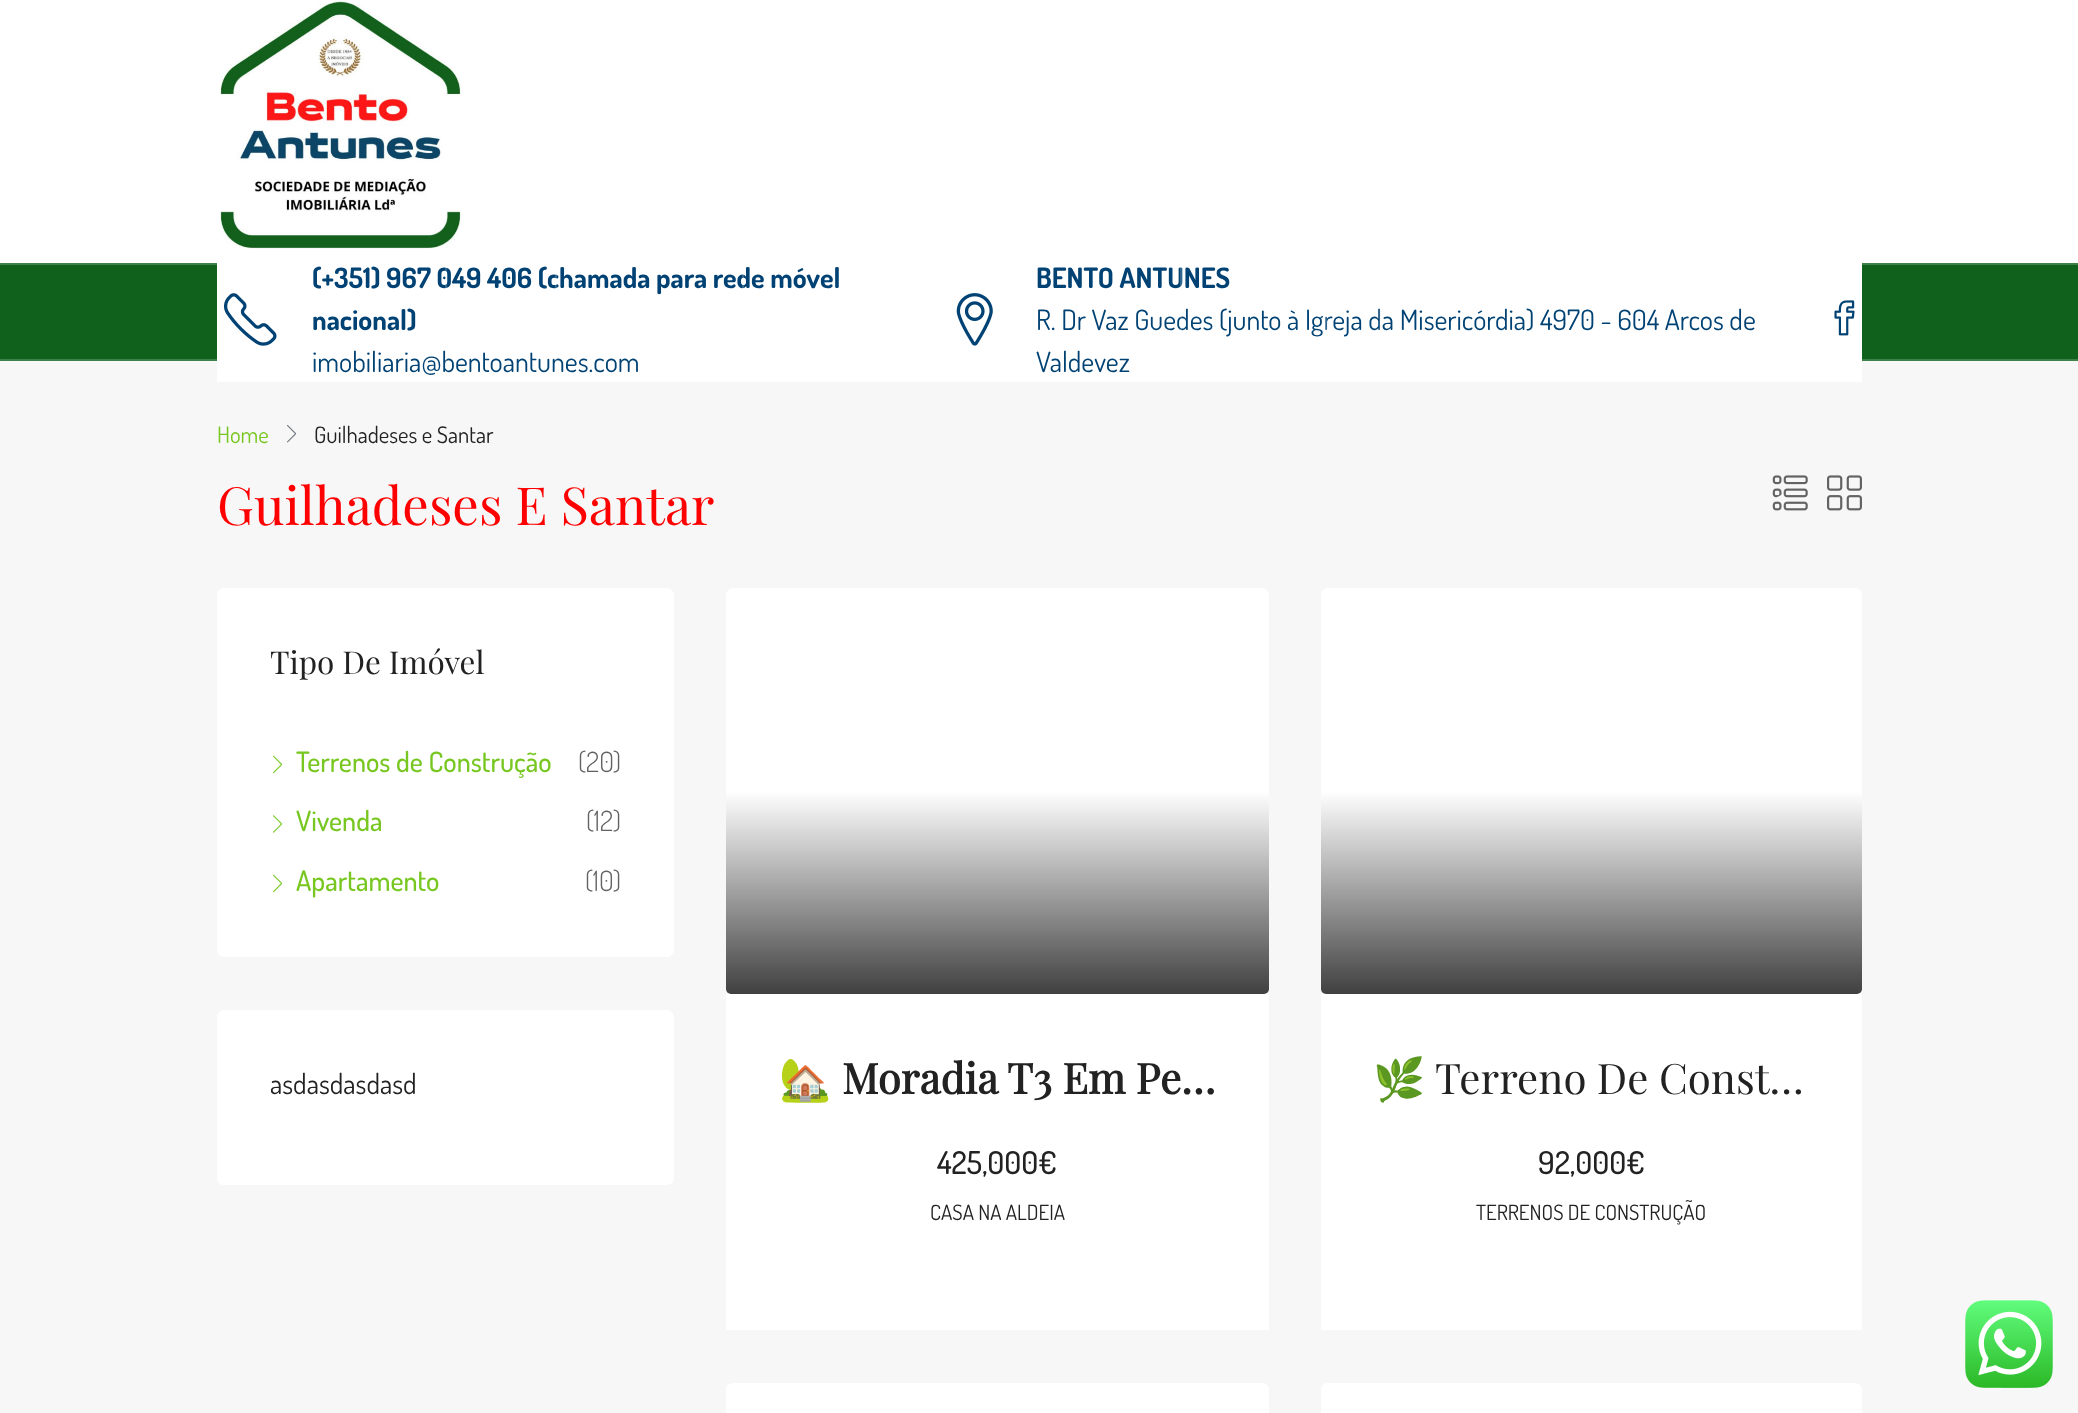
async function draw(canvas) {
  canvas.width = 2078;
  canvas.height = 1413;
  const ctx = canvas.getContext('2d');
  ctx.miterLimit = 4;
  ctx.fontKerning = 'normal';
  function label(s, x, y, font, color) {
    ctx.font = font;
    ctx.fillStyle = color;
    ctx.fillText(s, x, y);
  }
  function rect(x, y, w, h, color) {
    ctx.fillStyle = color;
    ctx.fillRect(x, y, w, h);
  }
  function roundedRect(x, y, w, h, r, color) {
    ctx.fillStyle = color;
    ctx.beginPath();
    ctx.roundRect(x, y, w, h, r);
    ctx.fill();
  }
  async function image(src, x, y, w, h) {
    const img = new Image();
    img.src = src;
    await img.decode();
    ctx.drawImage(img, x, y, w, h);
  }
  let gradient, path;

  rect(0, 0, 2078, 1413, '#f7f7f7');
  rect(0, 265, 2078, 94, '#10611c');
  rect(0, 263, 2078, 2, '#408149');
  rect(0, 359, 2078, 2, '#408149');
  rect(217, 263, 1645, 119, '#fff');
  label('(+351) 967 049 406 (chamada para rede móvel', 312, 288, 'bold 28px Dosis', '#004274');
  label('imobiliaria@bentoantunes.com', 312, 372, '28px Dosis', '#004274');
  rect(445, 264, 2, 98, '#ffffff33');
  rect(555, 274, 2, 88, '#ffffff33');
  rect(742, 274, 2, 15, '#ffffff33');
  label('BENTO ANTUNES', 1036, 288, 'bold 28px Dosis', '#004274');
  label('R. Dr Vaz Guedes (junto à Igreja da Misericórdia) 4970 - 604 Arcos de', 1036, 330, '28px Dosis', '#004274');
  rect(1180, 264, 2, 67, '#ffffff33');
  rect(1325, 316, 2, 14, '#ffffff33');
  rect(1379, 308, 1, 22, '#ffffff33');
  rect(0, 0, 2078, 263, '#fff');
  await image('assets/img1.png', 220, 0, 243, 249);
  await image('assets/img2.png', 224, 293, 53, 53);
  label('nacional)', 312, 330, 'bold 28px Dosis', '#004274');
  await image('assets/img3.png', 956, 293, 37, 53);
  label('Valdevez', 1036, 372, '28px Dosis', '#004274');
  await image('assets/img4.png', 1834, 300, 21, 36);
  label('Home', 217, 443, '22.75px Dosis', '#77c720');
  await image('assets/img5.png', 287, 425, 9, 18);
  label('Guilhadeses e Santar', 314, 443, '22.75px Dosis', '#222');
  label('Guilhadeses E Santar', 217, 525, '52.5px Playfair Display', '#f00');
  await image('assets/img6.png', 1772, 475, 36, 36);
  await image('assets/img7.png', 1827, 475, 35, 36);
  roundedRect(217, 588, 457, 369, 7, '#fff');
  label('Tipo De Imóvel', 270, 674, '31.5px Playfair Display', '#222');
  await image('assets/img8.png', 273, 755, 9, 19);
  label('Terrenos de Construção', 296, 772, '500 28px Dosis', '#77c720');
  label('(20)', 578, 772, '300 28px Dosis', '#636363');
  await image('assets/img9.png', 273, 815, 9, 18);
  label('Vivenda', 296, 831, '500 28px Dosis', '#77c720');
  label('(12)', 586, 831, '300 28px Dosis', '#636363');
  await image('assets/img8.png', 273, 874, 9, 19);
  label('Apartamento', 296, 891, '500 28px Dosis', '#77c720');
  label('(10)', 585, 891, '300 28px Dosis', '#636363');
  roundedRect(217, 1010, 457, 175, 7, '#fff');
  label('asdasdasdasd', 270, 1094, '28px Dosis', '#222');
  ctx.fillStyle = '#fff';
  ctx.beginPath();
  ctx.roundRect(726, 588, 543, 742, [7, 7, 0, 0]);
  ctx.fill();
  gradient = ctx.createLinearGradient(998, 588, 998, 994);
  gradient.addColorStop(0, '#00000000');
  gradient.addColorStop(0.5, '#00000000');
  gradient.addColorStop(1, '#000000bf');
  ctx.fillStyle = gradient;
  ctx.beginPath();
  ctx.roundRect(726, 588, 543, 406, 5);
  ctx.fill();
  ctx.save();
  ctx.beginPath();
  ctx.rect(779, 1047, 437, 59);
  ctx.clip();
  label('🏡', 779, 1094, 'bold 42px Noto Color Emoji', '#222');
  ctx.restore();
  label('Moradia T3 Em Pe…', 842, 1094, 'bold 42px Playfair Display', '#222');
  label('425,000€', 937, 1174, '500 31.5px Dosis', '#222');
  label('CASA NA ALDEIA', 930, 1220, '21px Dosis', '#222');
  ctx.fillStyle = '#fff';
  ctx.beginPath();
  ctx.roundRect(1321, 588, 541, 742, [7, 7, 0, 0]);
  ctx.fill();
  gradient = ctx.createLinearGradient(1592, 588, 1592, 994);
  gradient.addColorStop(0, '#00000000');
  gradient.addColorStop(0.5, '#00000000');
  gradient.addColorStop(1, '#000000bf');
  ctx.fillStyle = gradient;
  ctx.beginPath();
  ctx.roundRect(1321, 588, 541, 406, 5);
  ctx.fill();
  ctx.save();
  ctx.beginPath();
  ctx.rect(1374, 1047, 436, 59);
  ctx.clip();
  label('🌿', 1373, 1094, '42px Noto Color Emoji', '#222');
  ctx.restore();
  label('Terreno De Const…', 1435, 1094, '42px Playfair Display', '#222');
  label('92,000€', 1538, 1174, '500 31.5px Dosis', '#222');
  label('TERRENOS DE CONSTRUÇÃO', 1476, 1220, '21px Dosis', '#222');
  ctx.fillStyle = '#fff';
  path = new Path2D('M733 1383H1262C1266 1383 1269 1386 1269 1390V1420H726V1390C726 1386 729 1383 733 1383Z');
  ctx.fill(path);
  path = new Path2D('M1328 1383H1855C1859 1383 1862 1386 1862 1390V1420H1321V1390C1321 1386 1324 1383 1328 1383Z');
  ctx.fill(path);
  await image('assets/img10.png', 1965, 1300, 88, 88);
}

draw(document.querySelector('canvas'));
